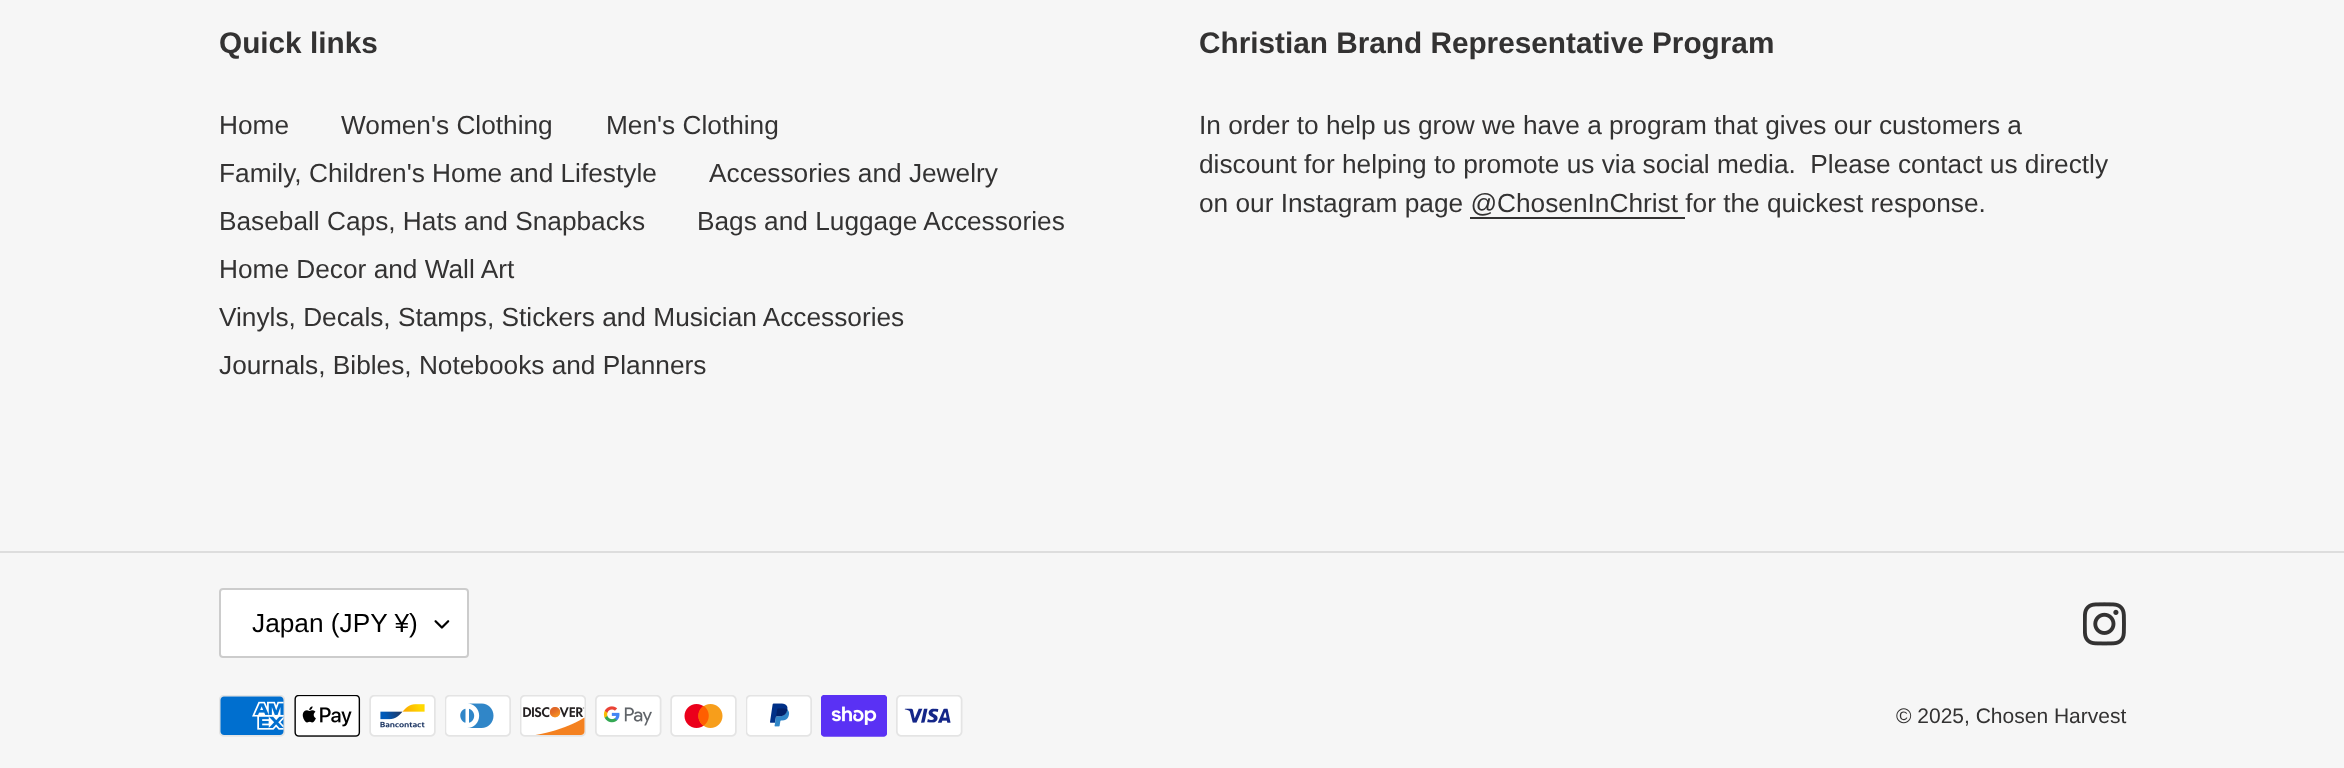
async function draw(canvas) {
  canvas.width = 2344;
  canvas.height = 768;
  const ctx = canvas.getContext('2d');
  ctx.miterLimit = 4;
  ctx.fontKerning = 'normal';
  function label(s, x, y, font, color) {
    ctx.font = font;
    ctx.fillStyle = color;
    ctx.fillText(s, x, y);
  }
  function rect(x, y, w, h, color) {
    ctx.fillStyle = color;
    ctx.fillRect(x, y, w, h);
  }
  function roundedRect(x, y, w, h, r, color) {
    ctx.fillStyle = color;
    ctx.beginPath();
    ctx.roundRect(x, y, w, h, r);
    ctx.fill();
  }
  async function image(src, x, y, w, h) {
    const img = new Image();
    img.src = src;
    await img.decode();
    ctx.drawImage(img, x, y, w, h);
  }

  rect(0, 0, 2344, 768, '#f6f6f6');
  label('Quick links', 219, 53, 'bold 29.75px Liberation Sans', '#333232');
  label('Home', 219, 134, '26.25px Liberation Sans', '#333232');
  label('Women\'s Clothing', 341, 134, '26.25px Liberation Sans', '#333232');
  label('Men\'s Clothing', 606, 134, '26.25px Liberation Sans', '#333232');
  label('Family, Children\'s Home and Lifestyle', 219, 182, '26.25px Liberation Sans', '#333232');
  label('Accessories and Jewelry', 709, 182, '26.25px Liberation Sans', '#333232');
  label('Baseball Caps, Hats and Snapbacks', 219, 230, '26.25px Liberation Sans', '#333232');
  label('Bags and Luggage Accessories', 697, 230, '26.25px Liberation Sans', '#333232');
  label('Home Decor and Wall Art', 219, 278, '26.25px Liberation Sans', '#333232');
  label('Vinyls, Decals, Stamps, Stickers and Musician Accessories', 219, 326, '26.25px Liberation Sans', '#333232');
  label('Journals, Bibles, Notebooks and Planners', 219, 374, '26.25px Liberation Sans', '#333232');
  label('Christian Brand Representative Program', 1199, 53, 'bold 29.75px Liberation Sans', '#333232');
  label('In order to help us grow we have a program that gives our customers a', 1199, 134, '26.25px Liberation Sans', '#333232');
  label('discount for helping to promote us via social media.  Please contact us directly', 1199, 173, '26.25px Liberation Sans', '#333232');
  label('on our Instagram page @ChosenInChrist for the quickest response.', 1199, 212, '26.25px Liberation Sans', '#333232');
  rect(1470, 217, 215, 2, '#333232');
  rect(0, 551, 2344, 2, '#ddd');
  roundedRect(219, 588, 250, 70, 4, '#fff');
  await image('assets/img1.png', 434, 620, 16, 9);
  ctx.beginPath();
  ctx.roundRect(220, 589, 248, 68, 3);
  ctx.strokeStyle = '#ccc';
  ctx.lineWidth = 2;
  ctx.stroke();
  label('Japan (JPY ¥)', 252, 632, '26.25px Liberation Sans', '#000');
  await image('assets/img2.png', 2083, 602, 43, 44);
  await image('assets/img3.png', 219, 695, 66, 42);
  await image('assets/img4.png', 294, 695, 67, 42);
  await image('assets/img5.png', 369, 695, 67, 42);
  await image('assets/img6.png', 445, 695, 66, 42);
  await image('assets/img7.png', 520, 695, 66, 42);
  await image('assets/img8.png', 595, 695, 67, 42);
  await image('assets/img9.png', 670, 695, 67, 42);
  await image('assets/img10.png', 746, 695, 66, 42);
  await image('assets/img11.png', 821, 695, 66, 42);
  await image('assets/img12.png', 896, 695, 67, 42);
  label('© 2025, Chosen Harvest', 1896, 723, '21px Liberation Sans', '#333232');
}

draw(document.querySelector('canvas'));
